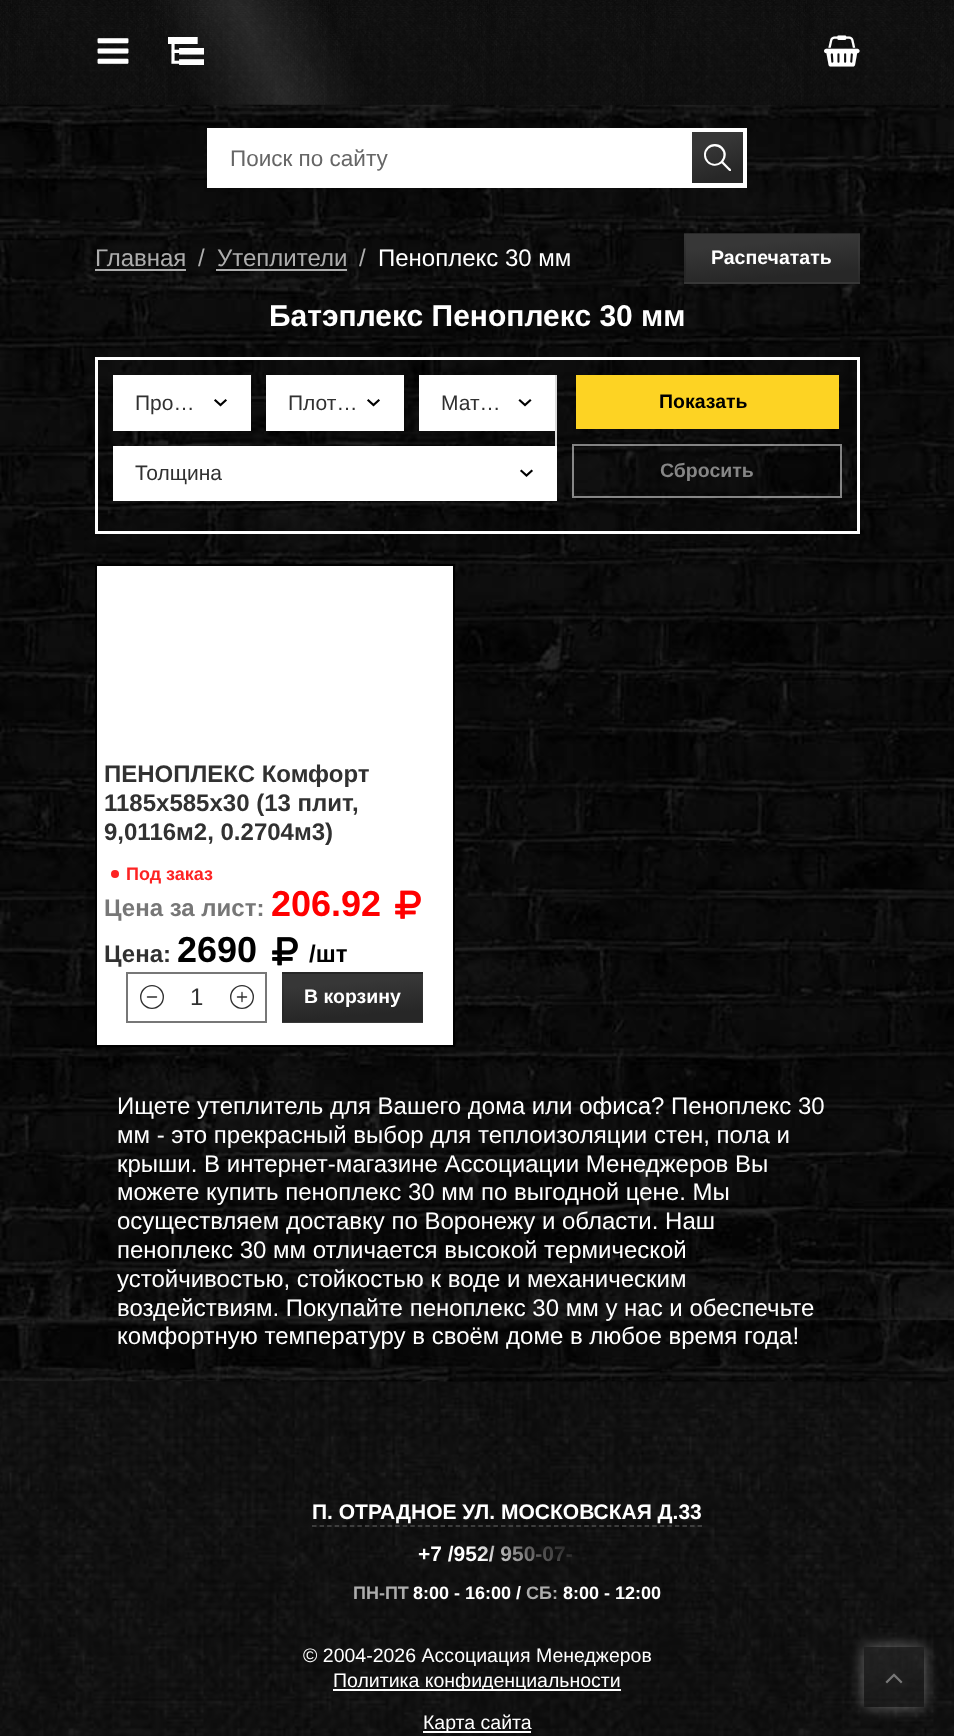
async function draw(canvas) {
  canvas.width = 954;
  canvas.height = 1736;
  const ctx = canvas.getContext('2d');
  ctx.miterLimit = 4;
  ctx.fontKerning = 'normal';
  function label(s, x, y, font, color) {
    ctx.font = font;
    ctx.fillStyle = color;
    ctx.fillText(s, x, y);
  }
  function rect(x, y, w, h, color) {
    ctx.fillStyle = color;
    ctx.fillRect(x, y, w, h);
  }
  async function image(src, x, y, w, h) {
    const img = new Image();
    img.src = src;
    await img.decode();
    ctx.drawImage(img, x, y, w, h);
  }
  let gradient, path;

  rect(0, 0, 954, 1736, '#fff');
  await image('assets/img1.png', 0, 104, 954, 1278);
  await image('assets/img2.png', 0, 0, 954, 105);
  label('s', 95, 69, '36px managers', '#fff');
  label('t', 168, 69, '36px managers', '#fff');
  label('u', 824, 69, '36px managers', '#fff');
  rect(207, 128, 540, 60, '#fff');
  label('Поиск по сайту', 230, 166, '22.5px Liberation Sans', '#666');
  gradient = ctx.createLinearGradient(728, 188, 706, 127);
  gradient.addColorStop(0.2, '#272727');
  gradient.addColorStop(0.75, '#373737');
  ctx.fillStyle = gradient;
  ctx.fillRect(692, 132, 51, 51);
  label('a', 704, 171, '27px managers', '#fff');
  label('Главная', 95, 266, '24px Liberation Sans', '#adadad');
  rect(95, 269, 91, 2, '#adadad');
  label('/', 198, 266, '24px Liberation Sans', '#adadad');
  label('Утеплители', 217, 266, '24px Liberation Sans', '#adadad');
  rect(216, 269, 131, 2, '#adadad');
  label('/', 359, 266, '24px Liberation Sans', '#adadad');
  label('Пеноплекс 30 мм', 378, 266, '24px Liberation Sans', '#fff');
  gradient = ctx.createLinearGradient(602, 242, 596, 178);
  gradient.addColorStop(0.2, '#272727');
  gradient.addColorStop(0.75, '#373737');
  ctx.fillStyle = gradient;
  ctx.fillRect(684, 233, 2, 1);
  gradient = ctx.createLinearGradient(775, 242, 769, 178);
  gradient.addColorStop(0.2, '#272727');
  gradient.addColorStop(0.75, '#373737');
  ctx.fillStyle = gradient;
  ctx.fillRect(686, 233, 172, 1);
  gradient = ctx.createLinearGradient(947, 242, 941, 178);
  gradient.addColorStop(0.2, '#272727');
  gradient.addColorStop(0.75, '#373737');
  ctx.fillStyle = gradient;
  ctx.fillRect(858, 233, 2, 1);
  gradient = ctx.createLinearGradient(602, 290, 596, 226);
  gradient.addColorStop(0.2, '#272727');
  gradient.addColorStop(0.75, '#373737');
  ctx.fillStyle = gradient;
  ctx.fillRect(684, 234, 2, 48);
  gradient = ctx.createLinearGradient(775, 290, 769, 226);
  gradient.addColorStop(0.2, '#272727');
  gradient.addColorStop(0.75, '#373737');
  ctx.fillStyle = gradient;
  ctx.fillRect(686, 234, 172, 48);
  gradient = ctx.createLinearGradient(947, 290, 941, 226);
  gradient.addColorStop(0.2, '#272727');
  gradient.addColorStop(0.75, '#373737');
  ctx.fillStyle = gradient;
  ctx.fillRect(858, 234, 2, 48);
  gradient = ctx.createLinearGradient(602, 338, 596, 274);
  gradient.addColorStop(0.2, '#272727');
  gradient.addColorStop(0.75, '#373737');
  ctx.fillStyle = gradient;
  ctx.fillRect(684, 282, 2, 2);
  gradient = ctx.createLinearGradient(775, 338, 769, 274);
  gradient.addColorStop(0.2, '#272727');
  gradient.addColorStop(0.75, '#373737');
  ctx.fillStyle = gradient;
  ctx.fillRect(686, 282, 172, 2);
  gradient = ctx.createLinearGradient(947, 338, 941, 274);
  gradient.addColorStop(0.2, '#272727');
  gradient.addColorStop(0.75, '#373737');
  ctx.fillStyle = gradient;
  ctx.fillRect(858, 282, 2, 2);
  label('Распечатать', 711, 264, 'bold 19.5px Liberation Sans', '#fff');
  label('Батэплекс Пеноплекс 30 мм', 269, 326, 'bold 30px Liberation Sans', '#fff');
  ctx.strokeStyle = '#fff';
  ctx.lineWidth = 3;
  ctx.strokeRect(96.5, 358.5, 762, 174);
  rect(113, 375, 138, 56, '#fff');
  label('Про…', 135, 410, '21px Liberation Sans', '#313131');
  path = new Path2D('M215.5 400.5L220.5 405L225.5 400.5');
  ctx.strokeStyle = '#000';
  ctx.lineWidth = 2.2;
  ctx.lineCap = 'square';
  ctx.stroke(path);
  rect(266, 375, 138, 56, '#fff');
  label('Плот…', 288, 410, '21px Liberation Sans', '#313131');
  path = new Path2D('M368.5 400.5L373.5 405L378.5 400.5');
  ctx.stroke(path);
  rect(555, 375, 2, 71, '#ddd');
  rect(419, 375, 136, 56, '#fff');
  label('Мат…', 441, 410, '21px Liberation Sans', '#313131');
  path = new Path2D('M520 400.5L525 405L530 400.5');
  ctx.stroke(path);
  rect(576, 375, 263, 54, '#fdd323');
  label('Показать', 659, 408, 'bold 19.5px Liberation Sans', '#000');
  ctx.strokeStyle = '#ffffff80';
  ctx.lineWidth = 2;
  ctx.strokeRect(573, 445, 268, 52);
  label('Сбросить', 660, 477, 'bold 19.5px Liberation Sans', '#868686');
  rect(113, 446, 444, 55, '#fff');
  label('Толщина', 135, 480, '21px Liberation Sans', '#313131');
  path = new Path2D('M521.5 471L526.5 475.5L531.5 471');
  ctx.strokeStyle = '#000';
  ctx.lineWidth = 2.2;
  ctx.stroke(path);
  ctx.fillStyle = '#fff';
  ctx.beginPath();
  ctx.rect(96, 565, 358, 481);
  ctx.fill();
  ctx.lineWidth = 2;
  ctx.stroke();
  label('ПЕНОПЛЕКС Комфорт', 104, 782, 'bold 24px Liberation Sans', '#313131');
  label('1185х585х30 (13 плит,', 104, 811, 'bold 24px Liberation Sans', '#313131');
  label('9,0116м2, 0.2704м3)', 104, 840, 'bold 24px Liberation Sans', '#313131');
  ctx.fillStyle = '#fd2323';
  ctx.beginPath();
  ctx.arc(115, 874, 4, 0, 2 * Math.PI);
  ctx.fill();
  label('Под заказ', 126, 880, 'bold 18px Liberation Sans', '#fd2323');
  label('Цена за лист:', 104, 916, 'bold 24px Liberation Sans', '#777');
  label('206.92', 271, 916, 'bold 36px Liberation Sans', '#f00');
  await image('assets/img3.png', 395, 890, 26, 29);
  label('Цена:', 104, 962, 'bold 24px Liberation Sans', '#313131');
  label('2690', 177, 962, 'bold 36px Liberation Sans', '#000');
  await image('assets/img4.png', 272, 937, 26, 29);
  label('/шт', 309, 962, 'bold 24px Liberation Sans', '#000');
  ctx.strokeStyle = '#777';
  ctx.strokeRect(127, 973, 139, 49);
  label('b', 140, 1009, '24px managers', '#313131');
  label('1', 190, 1005, '24px Liberation Sans', '#313131');
  label('c', 230, 1009, '24px managers', '#313131');
  gradient = ctx.createLinearGradient(217, 980, 212, 919);
  gradient.addColorStop(0.2, '#272727');
  gradient.addColorStop(0.75, '#373737');
  ctx.fillStyle = gradient;
  ctx.fillRect(282, 972, 2, 2);
  gradient = ctx.createLinearGradient(355, 980, 350, 919);
  gradient.addColorStop(0.2, '#272727');
  gradient.addColorStop(0.75, '#373737');
  ctx.fillStyle = gradient;
  ctx.fillRect(284, 972, 138, 2);
  gradient = ctx.createLinearGradient(493, 980, 488, 919);
  gradient.addColorStop(0.2, '#272727');
  gradient.addColorStop(0.75, '#373737');
  ctx.fillStyle = gradient;
  ctx.fillRect(422, 972, 1, 2);
  gradient = ctx.createLinearGradient(217, 1028, 212, 967);
  gradient.addColorStop(0.2, '#272727');
  gradient.addColorStop(0.75, '#373737');
  ctx.fillStyle = gradient;
  ctx.fillRect(282, 974, 2, 48);
  gradient = ctx.createLinearGradient(355, 1028, 350, 967);
  gradient.addColorStop(0.2, '#272727');
  gradient.addColorStop(0.75, '#373737');
  ctx.fillStyle = gradient;
  ctx.fillRect(284, 974, 138, 48);
  gradient = ctx.createLinearGradient(493, 1028, 488, 967);
  gradient.addColorStop(0.2, '#272727');
  gradient.addColorStop(0.75, '#373737');
  ctx.fillStyle = gradient;
  ctx.fillRect(422, 974, 1, 48);
  gradient = ctx.createLinearGradient(217, 1076, 212, 1015);
  gradient.addColorStop(0.2, '#272727');
  gradient.addColorStop(0.75, '#373737');
  ctx.fillStyle = gradient;
  ctx.fillRect(282, 1022, 2, 1);
  gradient = ctx.createLinearGradient(355, 1076, 350, 1015);
  gradient.addColorStop(0.2, '#272727');
  gradient.addColorStop(0.75, '#373737');
  ctx.fillStyle = gradient;
  ctx.fillRect(284, 1022, 138, 1);
  gradient = ctx.createLinearGradient(493, 1076, 488, 1015);
  gradient.addColorStop(0.2, '#272727');
  gradient.addColorStop(0.75, '#373737');
  ctx.fillStyle = gradient;
  ctx.fillRect(422, 1022, 1, 1);
  label('В корзину', 304, 1003, 'bold 19.5px Liberation Sans', '#fff');
  label('Ищете утеплитель для Вашего дома или офиса? Пеноплекс 30', 117, 1114, '24px Liberation Sans', '#fff');
  label('мм - это прекрасный выбор для теплоизоляции стен, пола и', 117, 1143, '24px Liberation Sans', '#fff');
  label('крыши. В интернет-магазине Ассоциации Менеджеров Вы', 117, 1172, '24px Liberation Sans', '#fff');
  label('можете купить пеноплекс 30 мм по выгодной цене. Мы', 117, 1200, '24px Liberation Sans', '#fff');
  label('осуществляем доставку по Воронежу и области. Наш', 117, 1229, '24px Liberation Sans', '#fff');
  label('пеноплекс 30 мм отличается высокой термической', 117, 1258, '24px Liberation Sans', '#fff');
  label('устойчивостью, стойкостью к воде и механическим', 117, 1287, '24px Liberation Sans', '#fff');
  label('воздействиям. Покупайте пеноплекс 30 мм у нас и обеспечьте', 117, 1316, '24px Liberation Sans', '#fff');
  label('комфортную температуру в своём доме в любое время года!', 117, 1344, '24px Liberation Sans', '#fff');
  await image('assets/img5.png', 0, 1381, 954, 355);
  path = new Path2D('M312 1526H702');
  ctx.strokeStyle = '#4d4d4d';
  ctx.lineWidth = 1.5;
  ctx.lineCap = 'butt';
  ctx.setLineDash([4.5, 3.06]);
  ctx.stroke(path);
  label('П. ОТРАДНОЕ УЛ. МОСКОВСКАЯ Д.33', 312, 1519, 'bold 21px Liberation Sans', '#fff');
  gradient = ctx.createLinearGradient(457, 1605, 557, 1505);
  gradient.addColorStop(0.33, '#fff');
  gradient.addColorStop(0.66, '#585757');
  gradient.addColorStop(1, '#000');
  ctx.fillStyle = gradient;
  ctx.fillText('+7 /952/ 950-07-', 418, 1561);
  label('ПН-ПТ', 353, 1599, 'bold 18px Liberation Sans', '#adadad');
  label('8:00 - 16:00 /', 413, 1599, 'bold 18px Liberation Sans', '#fff');
  label('СБ:', 526, 1599, 'bold 18px Liberation Sans', '#adadad');
  label('8:00 - 12:00', 563, 1599, 'bold 18px Liberation Sans', '#fff');
  label('© 2004-2026 Ассоциация Менеджеров', 303, 1662, '19.5px Liberation Sans', '#fff');
  rect(333, 1689, 288, 2, '#fff');
  label('Политика конфиденциальности', 333, 1687, '19.5px Liberation Sans', '#fff');
  rect(423, 1731, 108, 2, '#fff');
  label('Карта сайта', 423, 1729, '19.5px Liberation Sans', '#fff');
  ctx.save();
  path = new Path2D('M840 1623H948V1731H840ZM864 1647H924V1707H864Z');
  ctx.clip(path, 'evenodd');
  ctx.fillStyle = '#ffffff66';
  ctx.filter = 'blur(7.5px)';
  ctx.beginPath();
  ctx.rect(864, 1647, 60, 60);
  ctx.fill();
  ctx.filter = 'none';
  ctx.restore();
  label('v', 879, 1692, '30px managers', '#777');
}

draw(document.querySelector('canvas'));
